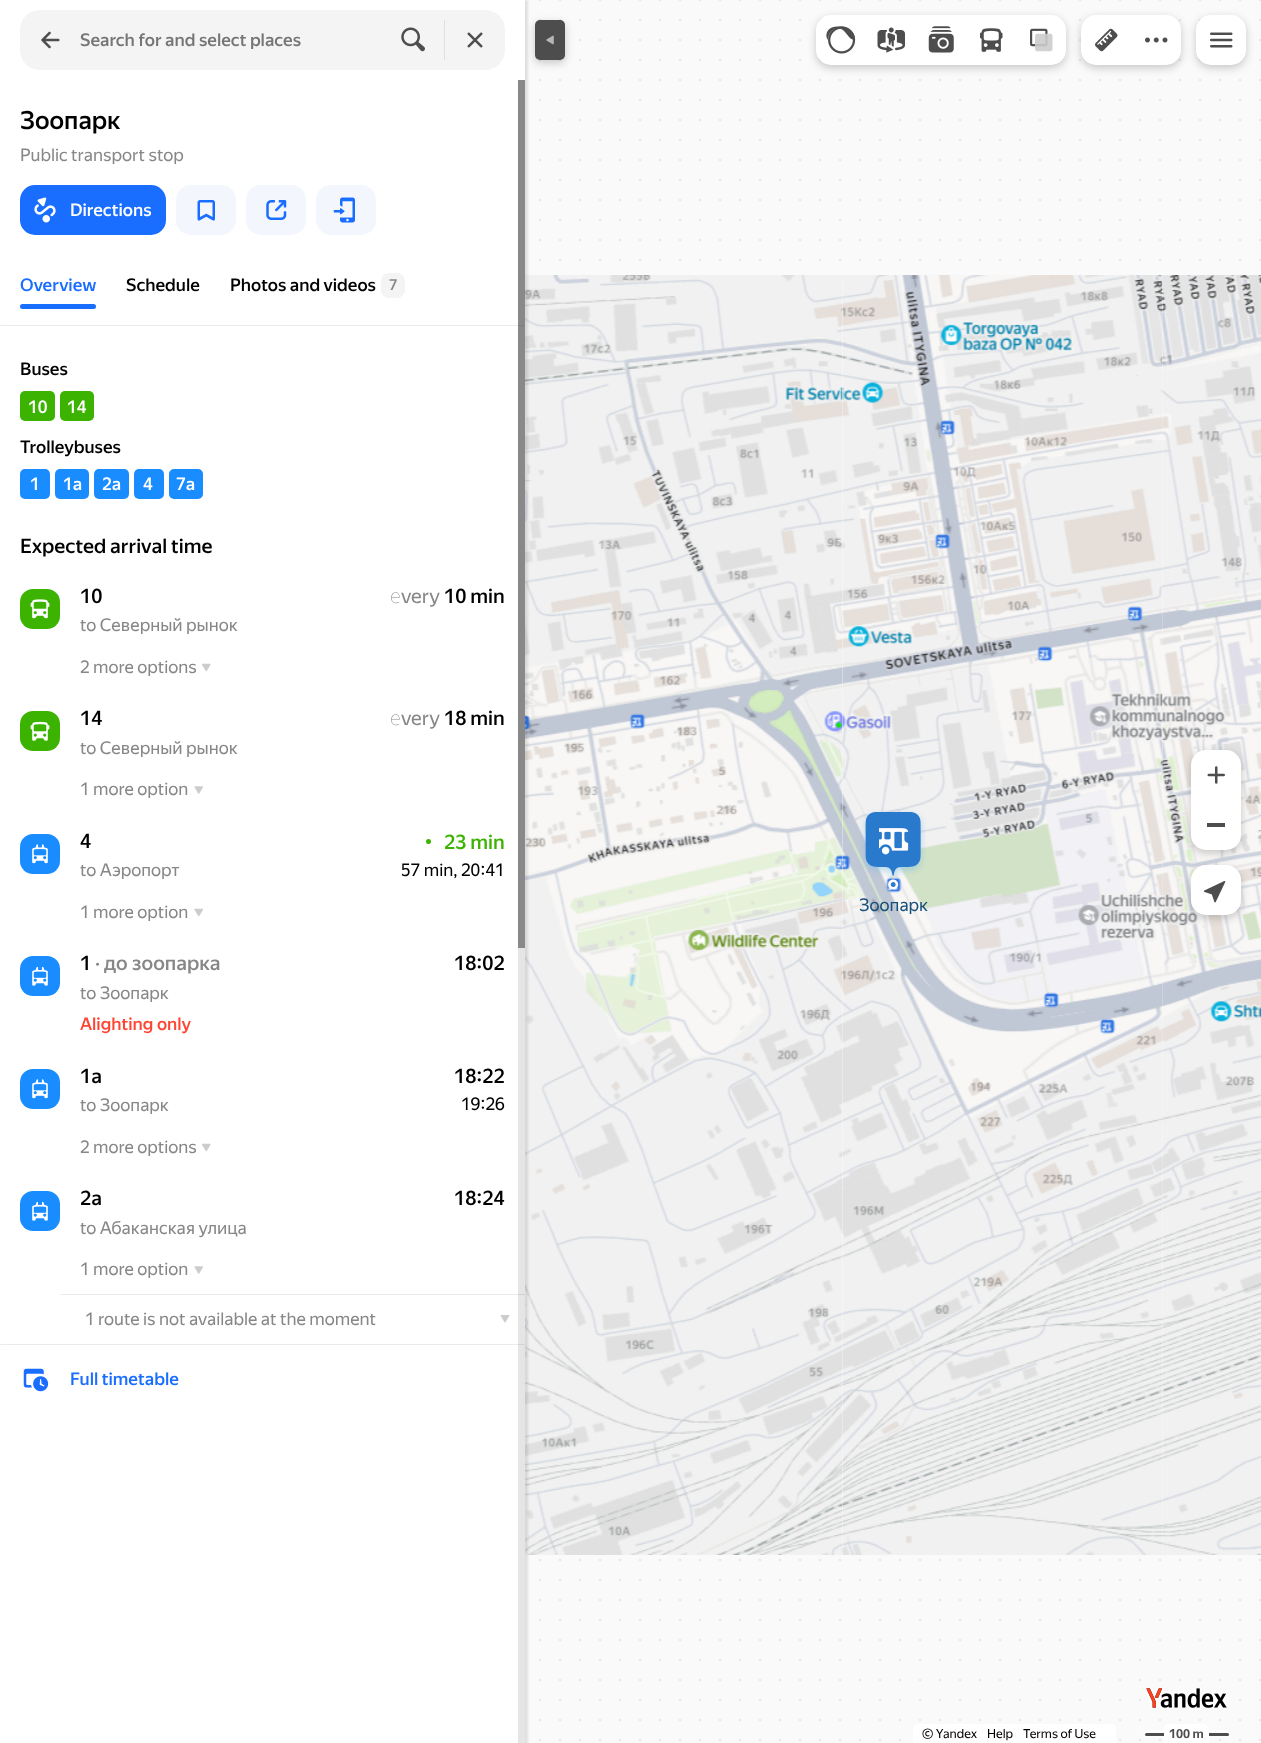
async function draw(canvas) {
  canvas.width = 1261;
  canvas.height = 1743;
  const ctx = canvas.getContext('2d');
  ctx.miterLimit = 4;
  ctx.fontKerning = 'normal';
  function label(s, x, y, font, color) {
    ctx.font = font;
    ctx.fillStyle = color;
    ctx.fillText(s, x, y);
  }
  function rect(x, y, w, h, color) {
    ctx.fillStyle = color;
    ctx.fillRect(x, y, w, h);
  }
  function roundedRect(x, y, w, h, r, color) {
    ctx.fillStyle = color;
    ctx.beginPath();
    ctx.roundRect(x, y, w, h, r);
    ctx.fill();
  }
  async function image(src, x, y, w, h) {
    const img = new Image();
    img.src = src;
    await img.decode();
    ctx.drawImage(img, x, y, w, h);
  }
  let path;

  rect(0, 0, 1261, 1743, '#fff');
  await image('assets/img1.png', 525, 0, 736, 1743);
  await image('assets/img30.png', 525, 275, 318, 320);
  await image('assets/img33.png', 525, 595, 318, 320);
  await image('assets/img36.png', 525, 915, 318, 320);
  await image('assets/img39.png', 525, 1235, 318, 320);
  ctx.fillStyle = '#0000001a';
  ctx.filter = 'blur(1px)';
  ctx.beginPath();
  ctx.rect(3, 0, 525, 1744);
  ctx.fill();
  ctx.filter = 'none';
  ctx.fillStyle = '#00000033';
  ctx.filter = 'blur(4px)';
  ctx.beginPath();
  ctx.roundRect(535, 23, 30, 40, 5);
  ctx.fill();
  ctx.filter = 'none';
  rect(2, 0, 523, 1743, '#fff');
  roundedRect(20, 10, 485, 60, 20, '#f4f4f4');
  await image('assets/img2.png', 41, 31, 19, 18);
  label('Search for and select places', 80, 46, '500 17.5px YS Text', '#757575');
  await image('assets/img3.png', 401, 27, 24, 25);
  rect(444, 20, 1, 40, '#e0e0e0');
  await image('assets/img4.png', 467, 32, 16, 16);
  ctx.fillStyle = '#00000033';
  ctx.filter = 'blur(4px)';
  ctx.beginPath();
  ctx.roundRect(816, 18, 250, 50, 15);
  ctx.fill();
  ctx.filter = 'none';
  ctx.fillStyle = '#fff';
  ctx.beginPath();
  ctx.roundRect(816, 15, 50, 50, [15, 0, 0, 15]);
  ctx.fill();
  await image('assets/img5.png', 826, 26, 30, 28);
  rect(866, 15, 150, 50, '#fff');
  await image('assets/img6.png', 877, 27, 28, 26);
  ctx.beginPath();
  ctx.roundRect(1016, 15, 50, 50, [0, 15, 15, 0]);
  ctx.fill();
  await image('assets/img7.png', 1030, 28, 23, 24);
  await image('assets/img8.png', 928, 26, 26, 27);
  await image('assets/img9.png', 980, 28, 23, 24);
  ctx.fillStyle = '#00000033';
  ctx.filter = 'blur(4px)';
  ctx.beginPath();
  ctx.roundRect(1081, 18, 100, 50, 15);
  ctx.fill();
  ctx.filter = 'none';
  ctx.fillStyle = '#fff';
  ctx.beginPath();
  ctx.roundRect(1081, 15, 50, 50, [15, 0, 0, 15]);
  ctx.fill();
  await image('assets/img10.png', 1095, 28, 23, 24);
  ctx.beginPath();
  ctx.roundRect(1131, 15, 50, 50, [0, 15, 15, 0]);
  ctx.fill();
  await image('assets/img11.png', 1145, 37, 23, 6);
  ctx.fillStyle = '#00000033';
  ctx.filter = 'blur(4px)';
  ctx.beginPath();
  ctx.roundRect(1196, 18, 50, 50, 15);
  ctx.fill();
  ctx.filter = 'none';
  roundedRect(1196, 15, 50, 50, 15, '#fff');
  await image('assets/img12.png', 1210, 32, 23, 16);
  await image('assets/img34.png', 842, 595, 321, 320);
  await image('assets/img35.png', 1162, 595, 99, 320);
  ctx.fillStyle = '#00000033';
  ctx.filter = 'blur(4px)';
  ctx.beginPath();
  ctx.roundRect(1191, 753, 50, 100, 15);
  ctx.fill();
  ctx.filter = 'none';
  ctx.fillStyle = '#fff';
  ctx.beginPath();
  ctx.roundRect(1191, 750, 50, 50, [15, 15, 0, 0]);
  ctx.fill();
  await image('assets/img13.png', 1207, 766, 18, 18);
  ctx.beginPath();
  ctx.roundRect(1191, 800, 50, 50, [0, 0, 15, 15]);
  ctx.fill();
  rect(1207, 823, 18, 4, '#4d4d4d');
  await image('assets/img37.png', 842, 915, 321, 320);
  await image('assets/img38.png', 1162, 915, 99, 320);
  ctx.fillStyle = '#00000033';
  ctx.filter = 'blur(4px)';
  ctx.beginPath();
  ctx.roundRect(1191, 868, 50, 50, 15);
  ctx.fill();
  ctx.filter = 'none';
  roundedRect(1191, 865, 50, 50, 15, '#fff');
  await image('assets/img14.png', 1203, 881, 23, 22);
  roundedRect(535, 20, 30, 40, 5, '#4d4d4d');
  await image('assets/img15.png', 546, 35, 8, 10);
  label('Зоопарк', 20, 129, '500 25px YS Text', '#000');
  label('Public transport stop', 20, 161, '17.5px YS Text', '#878787');
  roundedRect(20, 185, 146, 50, 15, '#196dff');
  await image('assets/img16.png', 34, 197, 22, 26);
  label('Directions', 70, 216, '500 17.5px YS Text', '#fff');
  roundedRect(176, 185, 60, 50, 15, '#f3f6fc');
  await image('assets/img17.png', 197, 200, 18, 21);
  roundedRect(246, 185, 60, 50, 15, '#f3f6fc');
  await image('assets/img18.png', 266, 200, 21, 20);
  roundedRect(316, 185, 60, 50, 15, '#f3f6fc');
  await image('assets/img19.png', 333, 197, 22, 26);
  label('Overview', 20, 291, '500 17.5px YS Text', '#196dff');
  label('Schedule', 126, 291, '500 17.5px YS Text', '#000');
  label('Photos and videos', 230, 291, '500 17.5px YS Text', '#000');
  roundedRect(381, 273, 24, 25, 8, '#f4f4f4');
  label('7', 389, 290, '500 15px YS Text', '#878787');
  roundedRect(20, 304, 76, 5, 2.5, '#196dff');
  rect(0, 325, 525, 1, '#ebebeb');
  label('Buses', 20, 375, '500 17.5px YS Text', '#000');
  roundedRect(20, 391, 35, 30, 5, '#3bb300');
  label('10', 28, 413, '500 17.5px YS Text', '#fff');
  roundedRect(60, 391, 34, 30, 5, '#3bb300');
  label('14', 67, 413, '500 17.5px YS Text', '#fff');
  label('Trolleybuses', 20, 453, '500 17.5px YS Text', '#000');
  roundedRect(20, 469, 30, 30, 5, '#198cff');
  label('1', 30, 490, '500 17.5px YS Text', '#fff');
  roundedRect(55, 469, 34, 30, 5, '#198cff');
  label('1а', 63, 490, '500 17.5px YS Text', '#fff');
  roundedRect(94, 469, 35, 30, 5, '#198cff');
  label('2а', 102, 490, '500 17.5px YS Text', '#fff');
  roundedRect(134, 469, 30, 30, 5, '#198cff');
  label('4', 143, 490, '500 17.5px YS Text', '#fff');
  roundedRect(169, 469, 34, 30, 5, '#198cff');
  label('7а', 176, 490, '500 17.5px YS Text', '#fff');
  label('Expected arrival time', 20, 553, '500 20px YS Text', '#000');
  roundedRect(20, 589, 40, 40, 13, '#3bb300');
  await image('assets/img20.png', 30, 599, 20, 20);
  label('10', 80, 603, '500 20px YS Text', '#000');
  label('to Северный рынок', 80, 631, '17.5px YS Text', '#878787');
  label('e', 390, 603, '100 20px Noto Sans', '#878787');
  label('very', 401, 603, '20px YS Text', '#878787');
  label('10 min', 444, 603, '500 20px YS Text', '#000');
  label('2 more options', 80, 673, '17.5px YS Text', '#878787');
  await image('assets/img21.png', 202, 663, 9, 9);
  roundedRect(20, 711, 40, 40, 13, '#3bb300');
  await image('assets/img22.png', 30, 721, 20, 20);
  label('14', 80, 725, '500 20px YS Text', '#000');
  label('to Северный рынок', 80, 754, '17.5px YS Text', '#878787');
  label('e', 390, 725, '100 20px Noto Sans', '#878787');
  label('very', 401, 725, '20px YS Text', '#878787');
  label('18 min', 444, 725, '500 20px YS Text', '#000');
  label('1 more option', 80, 795, '17.5px YS Text', '#878787');
  await image('assets/img23.png', 194, 786, 9, 8);
  roundedRect(20, 834, 40, 40, 13, '#198cff');
  await image('assets/img24.png', 32, 844, 16, 20);
  label('4', 80, 848, '500 20px YS Text', '#000');
  label('to Аэропорт', 80, 876, '17.5px YS Text', '#878787');
  ctx.fillStyle = '#3bb300';
  ctx.beginPath();
  ctx.arc(428.5, 841.5, 2.5, 0, 2 * Math.PI);
  ctx.fill();
  label('23 min', 444, 849, '500 20px YS Text', '#3bb300');
  label('57 min, 20:41', 401, 876, '17.5px YS Text', '#000');
  label('1 more option', 80, 918, '17.5px YS Text', '#878787');
  await image('assets/img25.png', 194, 908, 9, 9);
  roundedRect(20, 956, 40, 40, 13, '#198cff');
  await image('assets/img26.png', 32, 966, 16, 20);
  label('1', 80, 970, '500 20px YS Text', '#000');
  label('· до зоопарка', 95, 970, '500 20px YS Text', '#878787');
  label('to Зоопарк', 80, 999, '17.5px YS Text', '#878787');
  label('Alighting only', 80, 1030, '500 17.5px YS Text', '#f43');
  label('18:02', 454, 970, '500 20px YS Text', '#000');
  roundedRect(20, 1069, 40, 40, 13, '#198cff');
  await image('assets/img24.png', 32, 1079, 16, 20);
  label('1а', 80, 1083, '500 20px YS Text', '#000');
  label('to Зоопарк', 80, 1111, '17.5px YS Text', '#878787');
  label('18:22', 454, 1083, '500 20px YS Text', '#000');
  label('19:26', 461, 1110, '17.5px YS Text', '#000');
  label('2 more options', 80, 1153, '17.5px YS Text', '#878787');
  await image('assets/img21.png', 202, 1143, 9, 9);
  roundedRect(20, 1191, 40, 40, 13, '#198cff');
  await image('assets/img26.png', 32, 1201, 16, 20);
  label('2а', 80, 1205, '500 20px YS Text', '#000');
  label('to Абаканская улица', 80, 1234, '17.5px YS Text', '#878787');
  label('18:24', 454, 1205, '500 20px YS Text', '#000');
  label('1 more option', 80, 1275, '17.5px YS Text', '#878787');
  await image('assets/img23.png', 194, 1266, 9, 8);
  rect(60, 1294, 465, 1, '#ebebeb');
  label('1 route is not available at the moment', 85, 1325, '17.5px YS Text', '#878787');
  await image('assets/img27.png', 500, 1315, 10, 8);
  rect(0, 1344, 525, 1, '#ebebeb');
  await image('assets/img28.png', 23, 1368, 26, 24);
  label('Full timetable', 70, 1385, '500 17.5px YS Text', '#196dff');
  rect(518, 80, 7, 1663, '#0000001a');
  rect(518, 80, 7, 868, '#00000066');
  await image('assets/img29.png', 1146, 1688, 81, 20);
  ctx.fillStyle = '#fff';
  path = new Path2D('M918 1724H1111C1114 1724 1116 1726 1116 1729V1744H913V1729C913 1726 915 1724 918 1724Z');
  ctx.fill(path);
  label('© Yandex', 922, 1738, '12.5px YS Text', '#000');
  label('Help', 987, 1738, '12.5px YS Text', '#000');
  label('Terms of Use', 1023, 1738, '12.5px YS Text', '#000');
  roundedRect(1143, 1730, 88, 8, 4, '#fdfdfd');
  roundedRect(1145, 1733, 84, 3, 1.5, '#4d4d4d');
  ctx.fillStyle = '#fff';
  path = new Path2D('M1169 1724H1204C1207 1724 1209 1726 1209 1729V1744H1164V1729C1164 1726 1166 1724 1169 1724Z');
  ctx.fill(path);
  label('100 m', 1169, 1738, 'bold 12.5px YS Text', '#4d4d4d');
  await image('assets/img31.png', 842, 275, 321, 320);
  await image('assets/img32.png', 1162, 275, 99, 320);
  await image('assets/img40.png', 842, 1235, 321, 320);
  await image('assets/img41.png', 1162, 1235, 99, 320);
  await image('assets/img42.png', 860, 809, 66, 81);
  await image('assets/img43.png', 879, 828, 30, 27);
  label('Зоопарк', 859, 911, '17.5px YS Text', '#175078');
}

draw(document.querySelector('canvas'));
